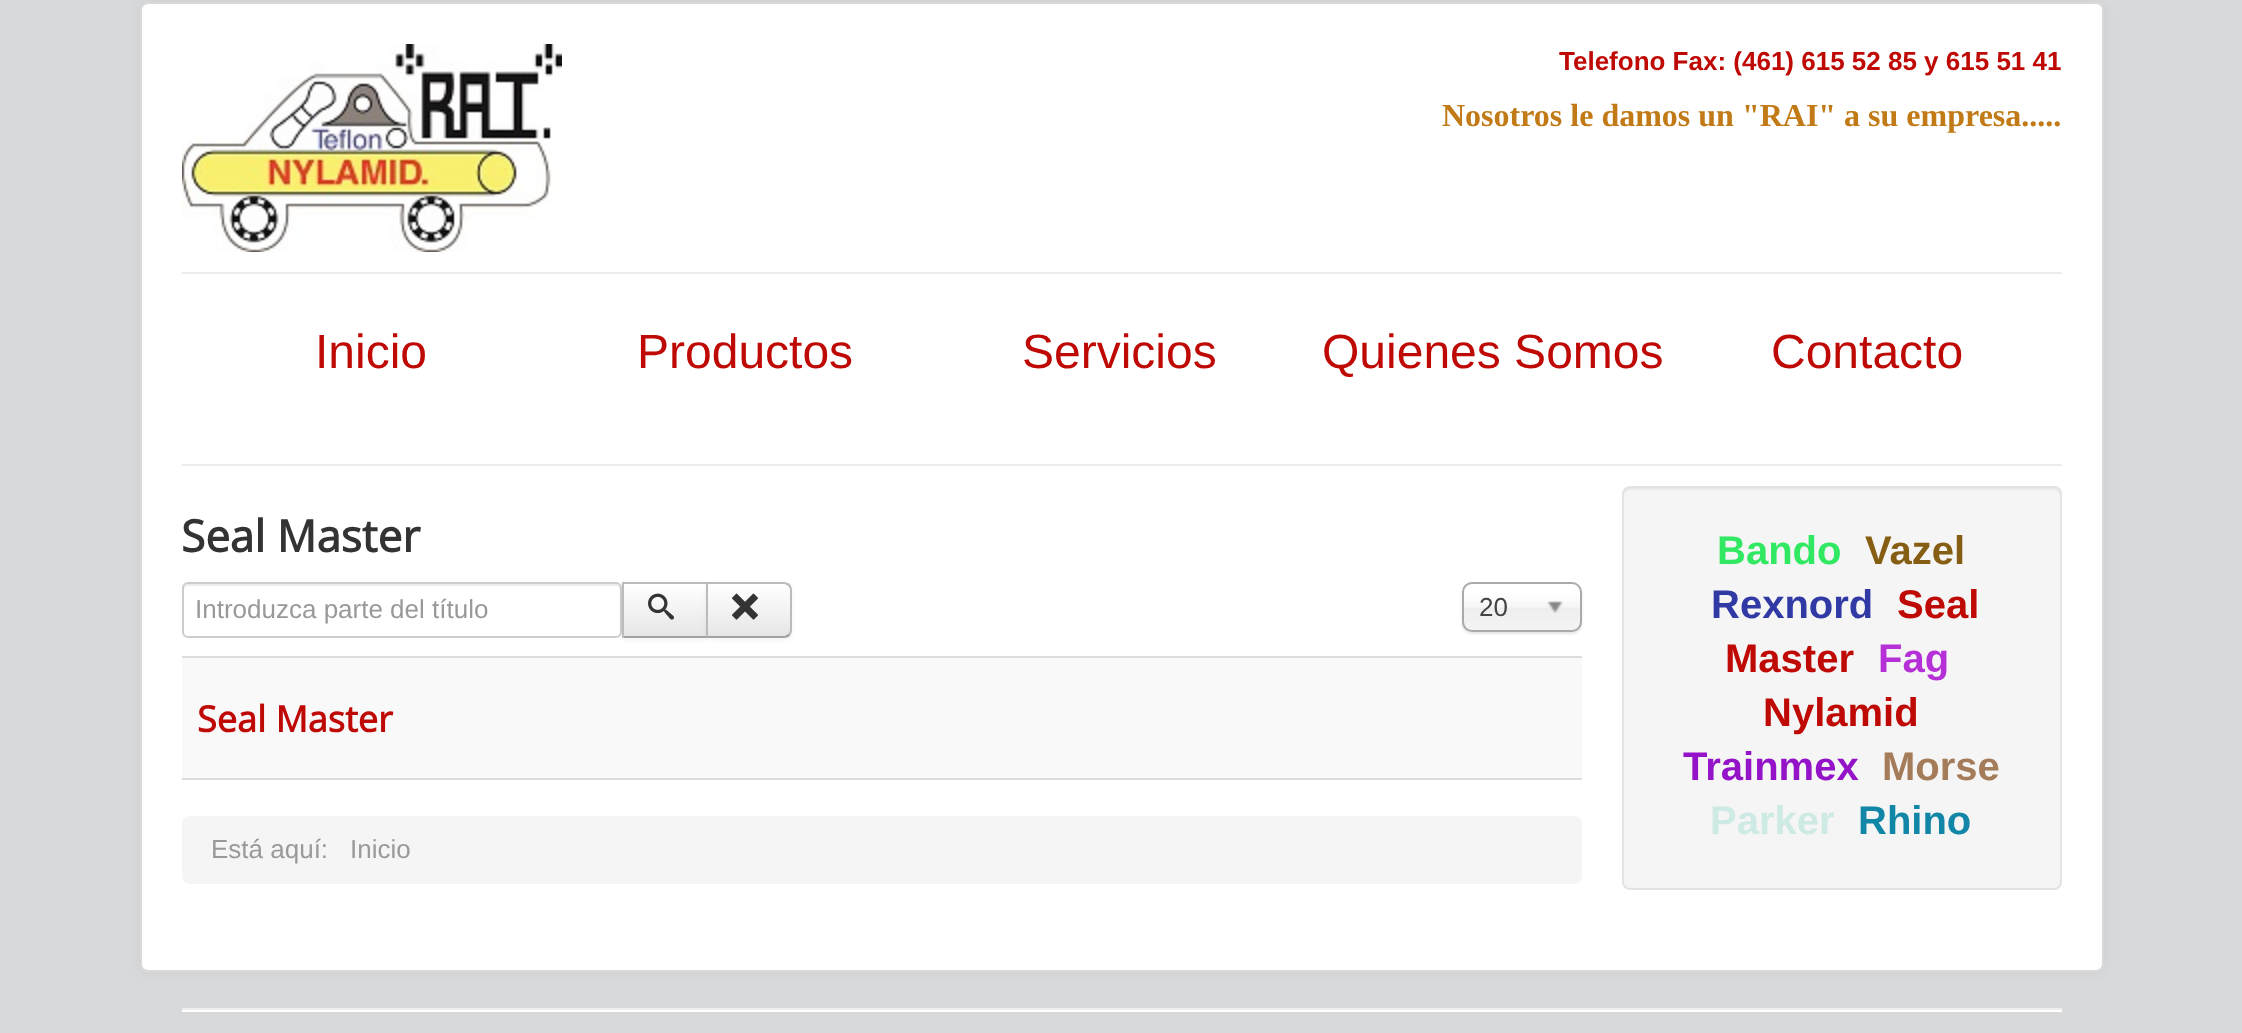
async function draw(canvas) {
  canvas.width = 2242;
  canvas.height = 1033;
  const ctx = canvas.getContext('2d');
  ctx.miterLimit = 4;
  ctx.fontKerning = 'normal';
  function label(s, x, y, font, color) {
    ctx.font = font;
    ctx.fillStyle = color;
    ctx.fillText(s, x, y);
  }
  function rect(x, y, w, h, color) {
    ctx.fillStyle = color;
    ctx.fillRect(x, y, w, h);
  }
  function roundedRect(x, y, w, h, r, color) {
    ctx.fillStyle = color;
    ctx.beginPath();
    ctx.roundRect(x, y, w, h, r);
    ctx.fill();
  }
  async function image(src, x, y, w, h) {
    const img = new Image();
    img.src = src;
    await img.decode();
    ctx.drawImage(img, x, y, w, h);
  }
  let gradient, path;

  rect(0, 0, 2242, 1033, '#d7d9db');
  ctx.fillStyle = '#0000000d';
  ctx.filter = 'blur(6px)';
  ctx.beginPath();
  ctx.roundRect(140, 2, 1964, 970, 8);
  ctx.fill();
  ctx.filter = 'none';
  roundedRect(140, 2, 1964, 970, 8, '#fff');
  ctx.beginPath();
  ctx.roundRect(141, 3, 1962, 968, 7);
  ctx.strokeStyle = '#00000026';
  ctx.lineWidth = 2;
  ctx.stroke();
  await image('assets/img1.png', 182, 44, 380, 208);
  label('Telefono Fax: (461) 615 52 85 y 615 51 41', 1559, 70, 'bold 26px Liberation Sans', '#bf0905');
  label('Nosotros le damos un "RAI" a su empresa.....', 1442, 126, 'bold 32px Liberation Serif', '#c17a16');
  rect(182, 272, 1880, 2, '#ececec');
  rect(182, 464, 1880, 2, '#ececec');
  label('Inicio', 315, 368, '48px Liberation Sans', '#bf0905');
  label('Productos', 637, 368, '48px Liberation Sans', '#bf0905');
  label('Servicios', 1022, 368, '48px Liberation Sans', '#bf0905');
  label('Quienes Somos', 1322, 368, '48px Liberation Sans', '#bf0905');
  label('Contacto', 1771, 368, '48px Liberation Sans', '#bf0905');
  label('Seal Master', 181, 552, 'bold 44px Open Sans', '#333');
  ctx.fillStyle = '#ececec';
  path = new Path2D('M188 586H616C618 586 620 588 620 590V588C620 586 618 584 616 584H188C186 584 184 586 184 588V590C184 588 186 586 188 586Z');
  ctx.fill(path);
  ctx.beginPath();
  ctx.roundRect(183, 583, 438, 54, 5);
  ctx.strokeStyle = '#ccc';
  ctx.stroke();
  label('Introduzca parte del título', 195, 618, '26px Liberation Sans', '#999');
  ctx.fillStyle = '#0000000d';
  ctx.filter = 'blur(2px)';
  ctx.beginPath();
  ctx.rect(622, 584, 86, 56);
  ctx.fill();
  ctx.filter = 'none';
  gradient = ctx.createLinearGradient(665, 584, 665, 636);
  gradient.addColorStop(0, '#fff');
  gradient.addColorStop(1, '#e6e6e6');
  ctx.fillStyle = gradient;
  ctx.fillRect(624, 584, 82, 52);
  rect(622, 582, 86, 2, '#bbb');
  rect(622, 636, 86, 2, '#a2a2a2');
  rect(622, 582, 2, 56, '#bbb');
  await image('assets/img2.png', 648, 593, 26, 27);
  ctx.fillStyle = '#0000000d';
  ctx.filter = 'blur(2px)';
  ctx.beginPath();
  ctx.roundRect(706, 584, 86, 56, 8);
  ctx.fill();
  ctx.filter = 'none';
  ctx.save();
  ctx.beginPath();
  ctx.roundRect(706, 582, 86, 56, [0, 8, 8, 0]);
  ctx.clip();
  gradient = ctx.createLinearGradient(749, 584, 749, 636);
  gradient.addColorStop(0, '#fff');
  gradient.addColorStop(1, '#e6e6e6');
  ctx.fillStyle = gradient;
  ctx.fillRect(708, 584, 84, 52);
  ctx.restore();
  ctx.fillStyle = '#bbb';
  path = new Path2D('M706 582L708 584H785L788 586L790 584C788 583 786 582 784 582Z');
  ctx.fill(path);
  path = new Path2D('M792 630V590C792 588 791 586 790 584L788 586C789 587 790 588 790 590V630C790 632 789 633 788 634L790 636C791 634 792 632 792 630Z');
  ctx.fill(path);
  ctx.fillStyle = '#a2a2a2';
  path = new Path2D('M784 638C786 638 788 637 790 636L788 634L785 636H708L706 638Z');
  ctx.fill(path);
  ctx.fillStyle = '#bbb';
  path = new Path2D('M706 582V638L708 636V584Z');
  ctx.fill(path);
  await image('assets/img3.png', 732, 593, 26, 27);
  ctx.fillStyle = '#0000001a';
  ctx.filter = 'blur(1px)';
  ctx.beginPath();
  ctx.roundRect(1462, 584, 120, 50, 10);
  ctx.fill();
  ctx.filter = 'none';
  gradient = ctx.createLinearGradient(1522, 584, 1522, 630);
  gradient.addColorStop(0.2, '#fff');
  gradient.addColorStop(0.5, '#f6f6f6');
  gradient.addColorStop(0.52, '#eee');
  gradient.addColorStop(1, '#f4f4f4');
  ctx.fillStyle = gradient;
  ctx.beginPath();
  ctx.roundRect(1464, 584, 116, 46, 8);
  ctx.fill();
  ctx.beginPath();
  ctx.roundRect(1463, 583, 118, 48, 9);
  ctx.strokeStyle = '#aaa';
  ctx.stroke();
  label('20', 1479, 616, '26px Liberation Sans', '#444');
  await image('assets/img4.png', 1547, 601, 16, 12);
  rect(182, 656, 1400, 2, '#ddd');
  rect(182, 658, 1400, 120, '#f9f9f9');
  rect(182, 778, 1400, 2, '#ddd');
  label('Seal Master', 197, 732, 'bold 36px Open Sans', '#bf0905');
  roundedRect(182, 816, 1400, 68, 8, '#f5f5f5');
  label('Está aquí:', 211, 858, '26px Liberation Sans', '#999');
  label('Inicio', 350, 858, '26px Liberation Sans', '#999');
  roundedRect(1622, 486, 440, 404, 8, '#f5f5f5');
  ctx.fillStyle = '#e9e9e9';
  path = new Path2D('M1630 490H2054C2057 490 2060 493 2060 496V494C2060 491 2057 488 2054 488H1630C1627 488 1624 491 1624 494V496C1624 493 1627 490 1630 490Z');
  ctx.fill(path);
  ctx.beginPath();
  ctx.roundRect(1623, 487, 438, 402, 7);
  ctx.strokeStyle = '#e3e3e3';
  ctx.stroke();
  label('Bando', 1717, 564, 'bold 40px Liberation Sans', '#31e862');
  label('Vazel', 1865, 564, 'bold 40px Liberation Sans', '#855e13');
  label('Rexnord', 1711, 618, 'bold 40px Liberation Sans', '#3139a4');
  label('Seal', 1897, 618, 'bold 40px Liberation Sans', '#bf0905');
  label('Master', 1725, 672, 'bold 40px Liberation Sans', '#bf0905');
  label('Fag', 1878, 672, 'bold 40px Liberation Sans', '#b531d7');
  label('Nylamid', 1763, 726, 'bold 40px Liberation Sans', '#bf0905');
  label('Trainmex', 1683, 780, 'bold 40px Liberation Sans', '#9412c7');
  label('Morse', 1882, 780, 'bold 40px Liberation Sans', '#a57c59');
  label('Parker', 1710, 834, 'bold 40px Liberation Sans', '#ceeae5');
  label('Rhino', 1858, 834, 'bold 40px Liberation Sans', '#1186a6');
  rect(182, 1008, 1880, 2, '#eee');
  rect(182, 1010, 1880, 2, '#fff');
}

draw(document.querySelector('canvas'));
